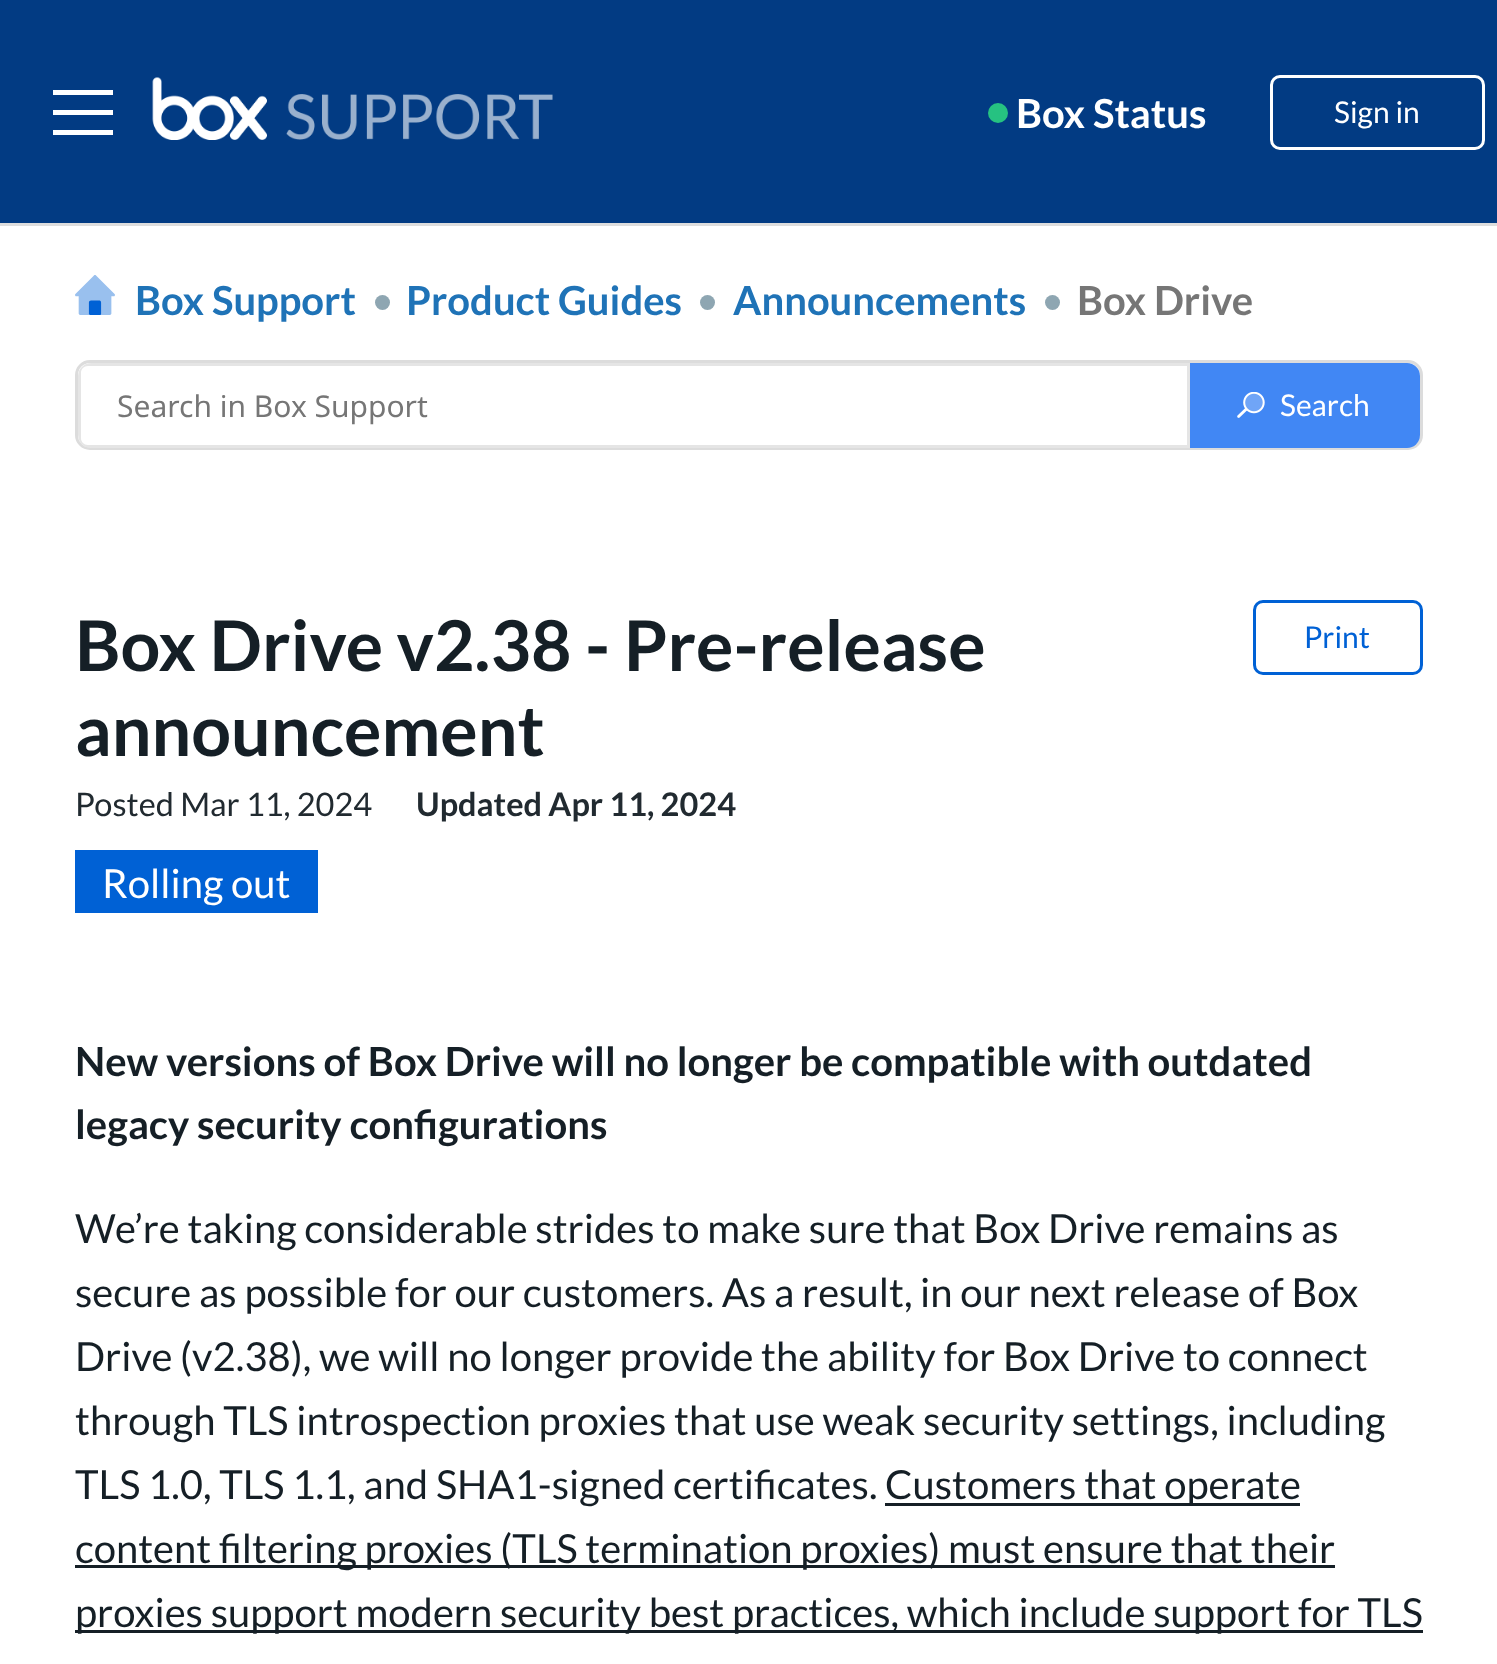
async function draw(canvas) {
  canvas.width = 1497;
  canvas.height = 1664;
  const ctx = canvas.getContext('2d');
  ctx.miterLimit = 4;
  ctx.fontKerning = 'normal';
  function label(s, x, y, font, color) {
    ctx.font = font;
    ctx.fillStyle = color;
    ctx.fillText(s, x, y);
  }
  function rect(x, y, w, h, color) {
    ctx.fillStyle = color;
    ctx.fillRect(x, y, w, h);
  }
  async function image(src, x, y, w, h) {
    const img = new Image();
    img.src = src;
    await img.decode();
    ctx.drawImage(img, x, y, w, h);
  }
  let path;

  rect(0, 0, 1497, 1664, '#fff');
  rect(0, 0, 1497, 223, '#023b83');
  rect(53, 90, 60, 5, '#fff');
  rect(53, 110, 60, 5, '#fff');
  rect(53, 130, 60, 5, '#fff');
  await image('assets/img1.png', 152, 77, 401, 63);
  ctx.fillStyle = '#26c281';
  ctx.beginPath();
  ctx.arc(998, 113, 10, 0, 2 * Math.PI);
  ctx.fill();
  label('Box Status', 1016, 128, 'bold 40px Lato', '#fff');
  ctx.beginPath();
  ctx.roundRect(1271.5, 76.5, 212, 72, 8.5);
  ctx.strokeStyle = '#fff';
  ctx.lineWidth = 3;
  ctx.stroke();
  label('Sign in', 1334, 123, '30px Lato', '#fff');
  rect(0, 223, 1497, 3, '#ddd');
  await image('assets/img2.png', 75, 275, 40, 40);
  label('Box Support', 135, 315, 'bold 40px Lato', '#1f73b7');
  ctx.fillStyle = '#8ea6b2';
  ctx.beginPath();
  ctx.arc(382.5, 302.5, 7.5, 0, 2 * Math.PI);
  ctx.fill();
  label('Product Guides', 406, 315, 'bold 40px Lato', '#1f73b7');
  ctx.fillStyle = '#8ea6b2';
  ctx.beginPath();
  ctx.arc(707.5, 302.5, 7.5, 0, 2 * Math.PI);
  ctx.fill();
  label('Announcements', 733, 315, 'bold 40px Lato', '#1f73b7');
  ctx.fillStyle = '#8ea6b2';
  ctx.beginPath();
  ctx.arc(1052.5, 302.5, 7.5, 0, 2 * Math.PI);
  ctx.fill();
  label('Box Drive', 1077, 315, 'bold 40px Lato', '#767676');
  ctx.beginPath();
  ctx.roundRect(76.5, 361.5, 1345, 87, 13.5);
  ctx.strokeStyle = '#dcdcdc';
  ctx.stroke();
  ctx.fillStyle = '#fff';
  ctx.beginPath();
  ctx.roundRect(78, 363, 1112, 85, [13, 0, 0, 13]);
  ctx.fill();
  ctx.fillStyle = '#0000001a';
  path = new Path2D('M91 363C84 363 78 369 78 376V435C78 442 84 448 91 448H1190V363ZM88 366C84 366 81 369 81 373V438C81 442 84 445 88 445H1187V366Z');
  ctx.fill(path, 'evenodd');
  label('Search in Box Support', 117, 417, '30px Noto Sans', '#767676');
  ctx.fillStyle = '#4187f4';
  ctx.beginPath();
  ctx.roundRect(1190, 363, 230, 85, [0, 13, 13, 0]);
  ctx.fill();
  await image('assets/img3.png', 1237, 392, 28, 26);
  label('Search', 1280, 416, '30px Lato', '#fff');
  label('Box Drive v2.38 - Pre-release', 75, 671, 'bold 70px Lato', '#151f26');
  label('announcement', 75, 756, 'bold 70px Lato', '#151f26');
  label('Posted Mar 11, 2024', 75, 816, '32.5px Lato', '#212a30');
  label('Updated Apr 11, 2024', 416, 816, 'bold 32.5px Lato', '#212a30');
  ctx.beginPath();
  ctx.roundRect(1254.5, 601.5, 167, 72, 8.5);
  ctx.strokeStyle = '#0061d5';
  ctx.stroke();
  label('Print', 1304, 648, '30px Lato', '#0061d5');
  rect(75, 850, 243, 63, '#0061d5');
  label('Rolling out', 102, 898, '40px Lato', '#fff');
  label('New versions of Box Drive will no longer be compatible with outdated', 75, 1076, 'bold 40px Lato', '#151f26');
  label('legacy security configurations', 75, 1139, 'bold 40px Lato', '#151f26');
  label('We’re taking considerable strides to make sure that Box Drive remains as', 75, 1243, '40px Lato', '#151f26');
  label('secure as possible for our customers. As a result, in our next release of Box', 75, 1307, '40px Lato', '#151f26');
  label('Drive (v2.38), we will no longer provide the ability for Box Drive to connect', 75, 1371, '40px Lato', '#151f26');
  label('through TLS introspection proxies that use weak security settings, including', 75, 1435, '40px Lato', '#151f26');
  label('TLS 1.0, TLS 1.1, and SHA1-signed certificates.', 75, 1499, '40px Lato', '#151f26');
  rect(885, 1503, 415, 3, '#151f26');
  label('Customers that operate', 885, 1499, '40px Lato', '#151f26');
  rect(75, 1565, 1260, 3, '#151f26');
  label('content filtering proxies (TLS termination proxies) must ensure that their', 75, 1563, '40px Lato', '#151f26');
  rect(75, 1630, 1348, 3, '#151f26');
  label('proxies support modern security best practices, which include support for TLS', 75, 1627, '40px Lato', '#151f26');
}

draw(document.querySelector('canvas'));
